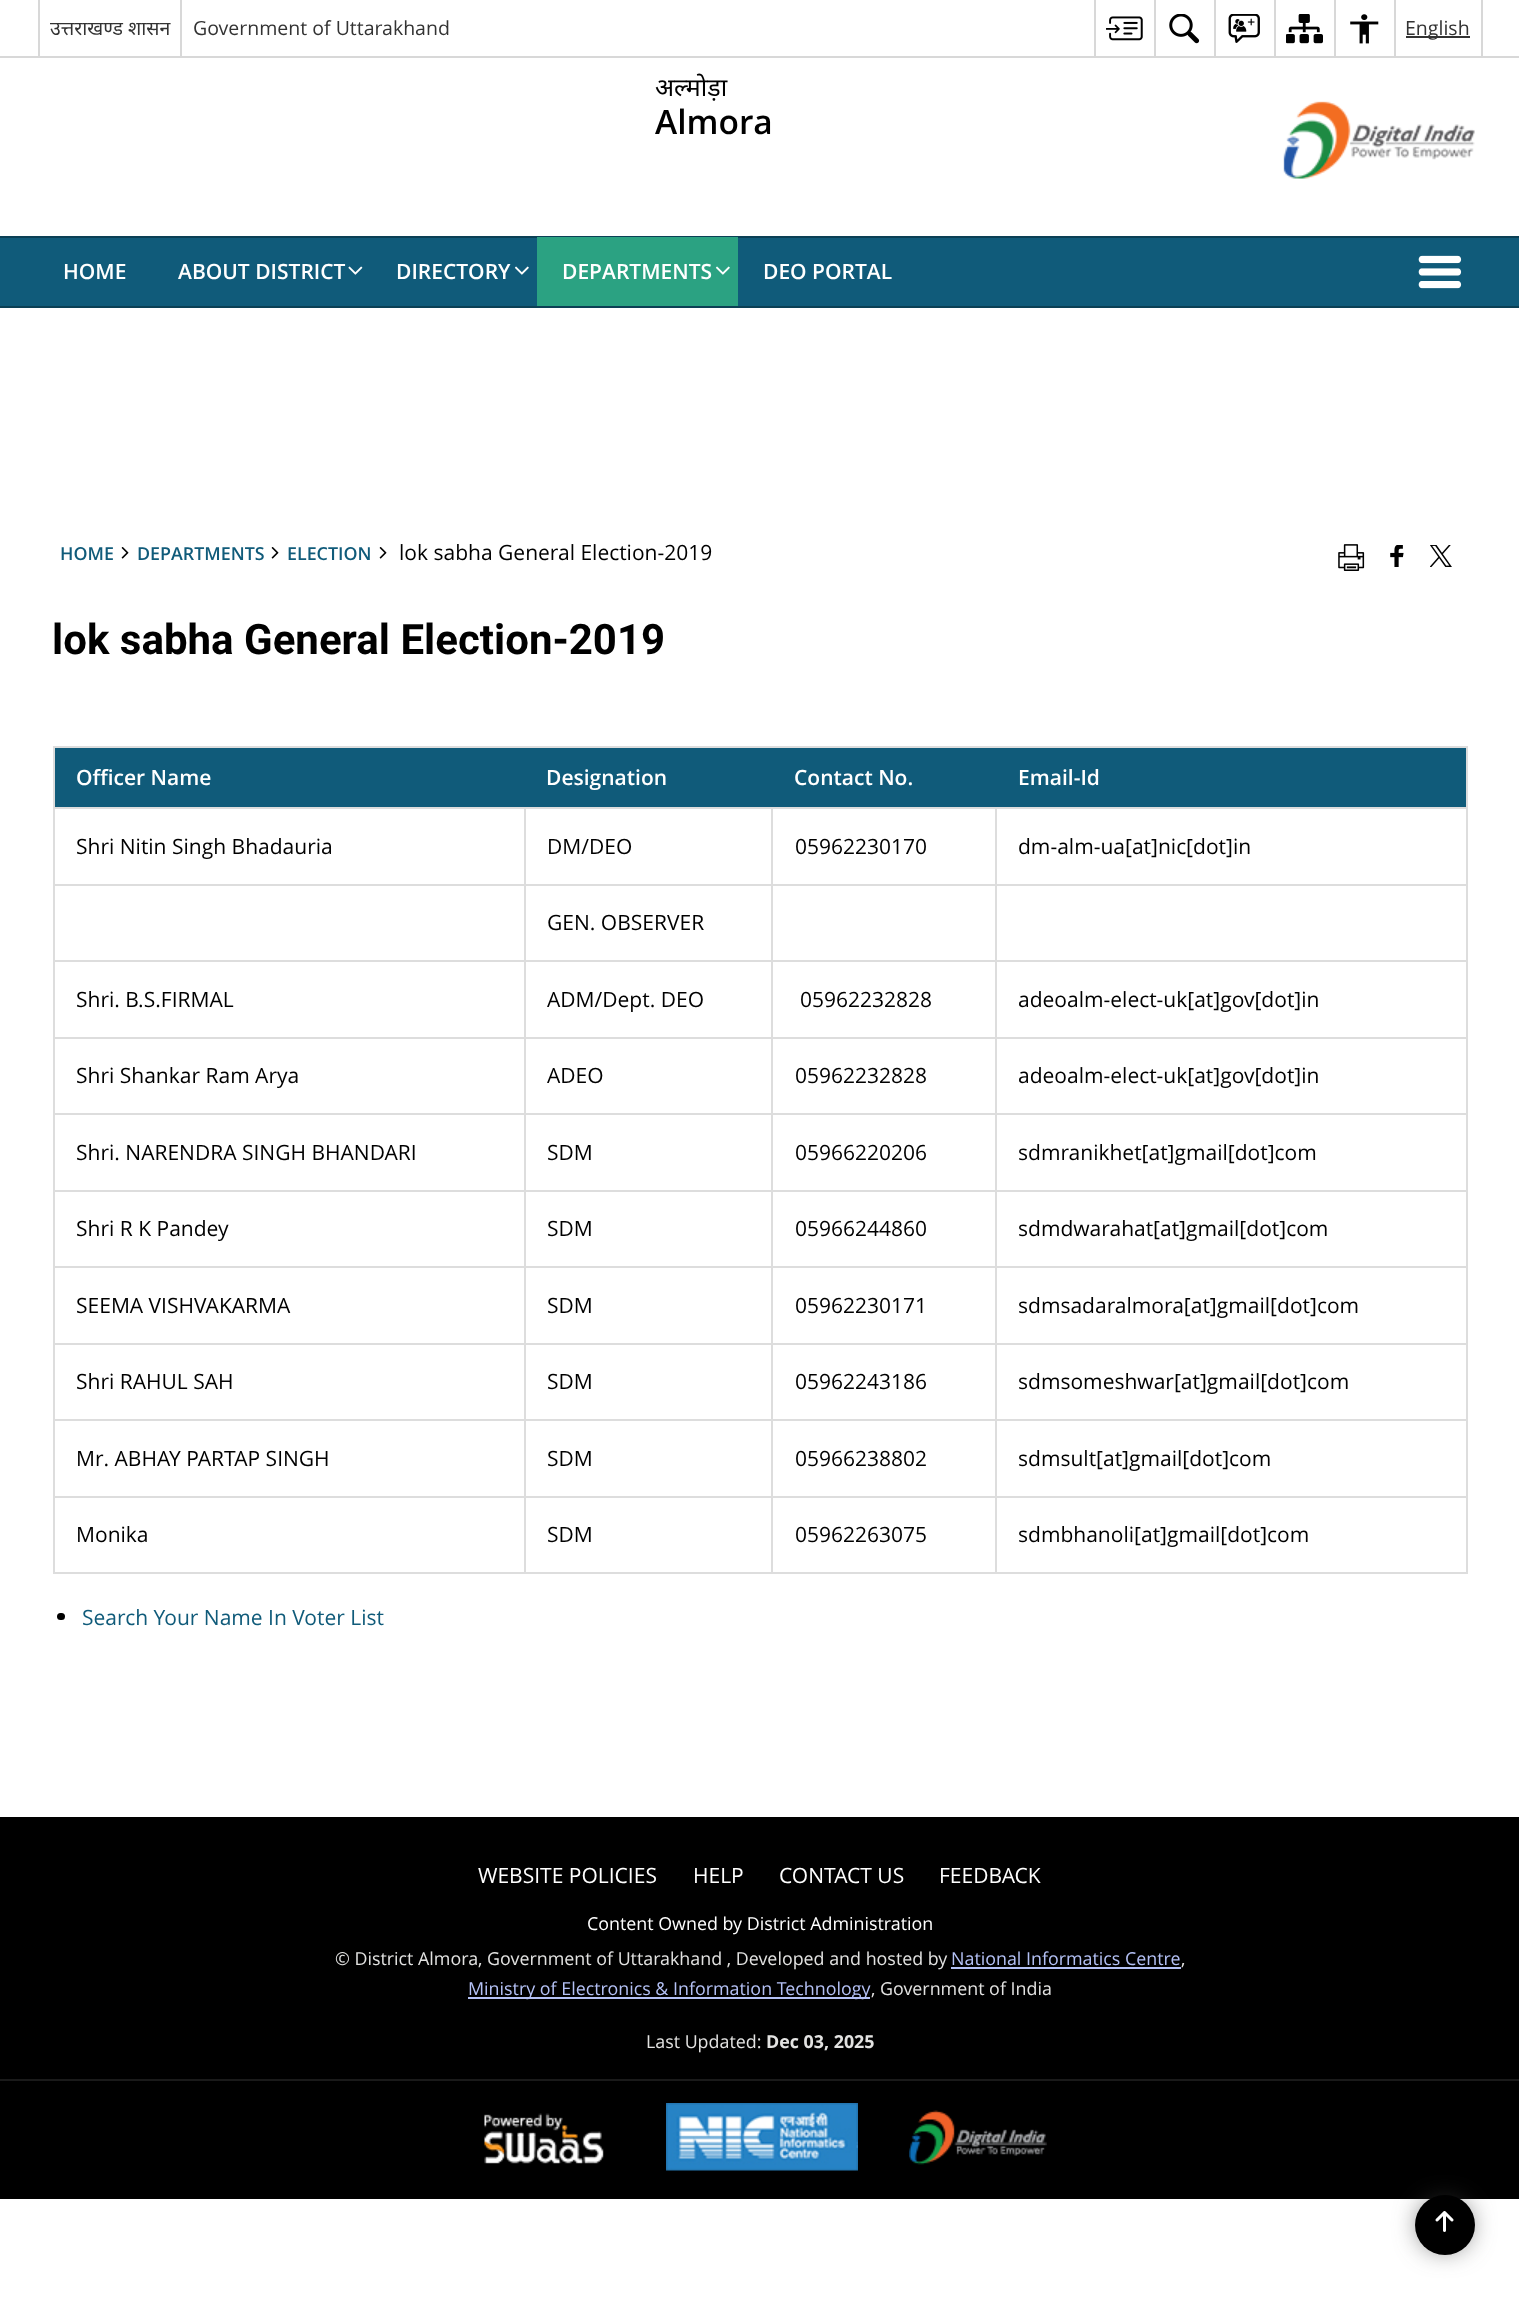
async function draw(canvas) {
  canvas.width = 1519;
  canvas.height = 2299;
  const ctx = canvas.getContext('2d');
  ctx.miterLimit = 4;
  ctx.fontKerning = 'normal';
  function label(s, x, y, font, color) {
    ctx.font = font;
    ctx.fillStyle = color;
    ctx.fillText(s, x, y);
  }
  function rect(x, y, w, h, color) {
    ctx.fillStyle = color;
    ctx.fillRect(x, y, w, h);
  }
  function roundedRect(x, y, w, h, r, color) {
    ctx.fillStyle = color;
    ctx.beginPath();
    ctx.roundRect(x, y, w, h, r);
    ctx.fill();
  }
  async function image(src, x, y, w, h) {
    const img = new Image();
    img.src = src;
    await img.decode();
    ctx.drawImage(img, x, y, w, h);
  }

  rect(0, 0, 1519, 2299, '#fff');
  rect(0, 56, 1519, 2, '#d8d8d8');
  rect(38, 0, 2, 56, '#d8d8d8');
  label('उत्तराखण्ड शासन', 50, 35, '19.5px Noto Sans', '#333');
  rect(180, 0, 2, 56, '#d8d8d8');
  label('Government of Uttarakhand', 193, 35, '19.5px Open Sans', '#333');
  rect(1094, 0, 2, 56, '#d8d8d8');
  await image('assets/img1.png', 1106, 16, 37, 25);
  rect(1154, 0, 2, 56, '#d8d8d8');
  await image('assets/img2.png', 1169, 14, 31, 30);
  rect(1214, 0, 2, 56, '#d8d8d8');
  await image('assets/img3.png', 1228, 14, 32, 29);
  rect(1274, 0, 2, 56, '#d8d8d8');
  await image('assets/img4.png', 1286, 14, 37, 30);
  rect(1334, 0, 2, 56, '#d8d8d8');
  await image('assets/img5.png', 1350, 14, 29, 30);
  rect(1481, 0, 2, 56, '#d8d8d8');
  rect(1394, 0, 2, 56, '#d8d8d8');
  rect(1406, 36, 64, 2, '#333');
  label('English', 1405, 35, '19.5px Open Sans', '#333');
  label('अल्मोड़ा', 655, 96, '25px Noto Sans', '#000');
  label('Almora', 655, 134, '600 33.5px Open Sans', '#000');
  await image('assets/img6.png', 1283, 101, 192, 78);
  rect(0, 238, 1519, 68, '#105b7a');
  rect(0, 236, 1519, 2, '#0b4055');
  rect(0, 306, 1519, 2, '#0b4055');
  label('HOME', 63, 279, '600 21px Open Sans', '#fff');
  label('ABOUT DISTRICT', 178, 279, '600 21px Open Sans', '#fff');
  await image('assets/img7.png', 348, 266, 15, 9);
  label('DIRECTORY', 396, 279, '600 21px Open Sans', '#fff');
  await image('assets/img8.png', 514, 266, 15, 9);
  rect(537, 237, 201, 69, '#2ba282');
  label('DEPARTMENTS', 562, 279, '600 21px Open Sans', '#fff');
  await image('assets/img9.png', 715, 266, 15, 9);
  label('DEO PORTAL', 763, 279, '600 21px Open Sans', '#fff');
  await image('assets/img10.png', 1418, 255, 44, 34);
  label('HOME', 60, 560, '600 17.85px Open Sans', '#105b7a');
  await image('assets/img11.png', 121, 547, 8, 12);
  label('DEPARTMENTS', 137, 560, '600 17.85px Open Sans', '#105b7a');
  await image('assets/img11.png', 271, 547, 8, 12);
  label('ELECTION', 287, 560, '600 17.85px Open Sans', '#105b7a');
  await image('assets/img11.png', 379, 547, 8, 12);
  label('lok sabha General Election-2019', 399, 560, '21px Open Sans', '#000');
  await image('assets/img12.png', 1338, 544, 27, 27);
  await image('assets/img13.png', 1390, 545, 14, 22);
  await image('assets/img14.png', 1430, 545, 22, 22);
  label('lok sabha General Election-2019', 52, 654, 'bold 42px Roboto', '#000');
  rect(53, 746, 1414, 2, '#ddd');
  rect(1466, 746, 2, 828, '#ddd');
  rect(53, 1572, 1414, 2, '#ddd');
  rect(53, 746, 2, 828, '#ddd');
  rect(55, 748, 1411, 59, '#105b7a');
  label('Officer Name', 76, 785, '600 21px Open Sans', '#fff');
  label('Designation', 546, 785, '600 21px Open Sans', '#fff');
  label('Contact No.', 794, 785, '600 21px Open Sans', '#fff');
  label('Email-Id', 1018, 785, '600 21px Open Sans', '#fff');
  rect(53, 807, 1414, 2, '#ddd');
  rect(53, 884, 1414, 2, '#ddd');
  rect(53, 960, 1414, 2, '#ddd');
  rect(53, 1037, 1414, 2, '#ddd');
  rect(53, 1113, 1414, 2, '#ddd');
  rect(53, 1190, 1414, 2, '#ddd');
  rect(53, 1266, 1414, 2, '#ddd');
  rect(53, 1343, 1414, 2, '#ddd');
  rect(53, 1419, 1414, 2, '#ddd');
  rect(53, 1496, 1414, 2, '#ddd');
  rect(524, 1496, 2, 78, '#ddd');
  rect(524, 1419, 2, 78, '#ddd');
  rect(524, 1343, 2, 78, '#ddd');
  rect(524, 1266, 2, 78, '#ddd');
  rect(524, 1190, 2, 78, '#ddd');
  rect(524, 1113, 2, 78, '#ddd');
  rect(524, 1037, 2, 78, '#ddd');
  rect(524, 960, 2, 78, '#ddd');
  rect(524, 884, 2, 78, '#ddd');
  rect(524, 807, 2, 78, '#ddd');
  label('Shri Nitin Singh Bhadauria', 76, 854, '21px Open Sans', '#000');
  rect(771, 1496, 2, 78, '#ddd');
  rect(771, 1419, 2, 78, '#ddd');
  rect(771, 1343, 2, 78, '#ddd');
  rect(771, 1266, 2, 78, '#ddd');
  rect(771, 1190, 2, 78, '#ddd');
  rect(771, 1113, 2, 78, '#ddd');
  rect(771, 1037, 2, 78, '#ddd');
  rect(771, 960, 2, 78, '#ddd');
  rect(771, 884, 2, 78, '#ddd');
  rect(771, 807, 2, 78, '#ddd');
  label('DM/DEO', 547, 854, '21px Open Sans', '#000');
  rect(995, 1496, 2, 78, '#ddd');
  rect(995, 1419, 2, 78, '#ddd');
  rect(995, 1343, 2, 78, '#ddd');
  rect(995, 1266, 2, 78, '#ddd');
  rect(995, 1190, 2, 78, '#ddd');
  rect(995, 1113, 2, 78, '#ddd');
  rect(995, 1037, 2, 78, '#ddd');
  rect(995, 960, 2, 78, '#ddd');
  rect(995, 884, 2, 78, '#ddd');
  rect(995, 807, 2, 78, '#ddd');
  label('05962230170', 795, 854, '21px Open Sans', '#000');
  label('dm-alm-ua[at]nic[dot]in', 1018, 854, '21px Open Sans', '#000');
  label('GEN. OBSERVER', 547, 930, '21px Open Sans', '#000');
  label('Shri. B.S.FIRMAL', 76, 1007, '21px Open Sans', '#000');
  label('ADM/Dept. DEO', 547, 1007, '21px Open Sans', '#000');
  label('05962232828', 800, 1007, '21px Open Sans', '#000');
  label('adeoalm-elect-uk[at]gov[dot]in', 1018, 1007, '21px Open Sans', '#000');
  label('Shri Shankar Ram Arya', 76, 1083, '21px Open Sans', '#000');
  label('ADEO', 547, 1083, '21px Open Sans', '#000');
  label('05962232828', 795, 1083, '21px Open Sans', '#000');
  label('adeoalm-elect-uk[at]gov[dot]in', 1018, 1083, '21px Open Sans', '#000');
  label('Shri. NARENDRA SINGH BHANDARI', 76, 1160, '21px Open Sans', '#000');
  label('SDM', 547, 1160, '21px Open Sans', '#000');
  label('05966220206', 795, 1160, '21px Open Sans', '#000');
  label('sdmranikhet[at]gmail[dot]com', 1018, 1160, '21px Open Sans', '#000');
  label('Shri R K Pandey', 76, 1236, '21px Open Sans', '#000');
  label('SDM', 547, 1236, '21px Open Sans', '#000');
  label('05966244860', 795, 1236, '21px Open Sans', '#000');
  label('sdmdwarahat[at]gmail[dot]com', 1018, 1236, '21px Open Sans', '#000');
  label('SEEMA VISHVAKARMA', 76, 1313, '21px Open Sans', '#000');
  label('SDM', 547, 1313, '21px Open Sans', '#000');
  label('05962230171', 795, 1313, '21px Open Sans', '#000');
  label('sdmsadaralmora[at]gmail[dot]com', 1018, 1313, '21px Open Sans', '#000');
  label('Shri RAHUL SAH', 76, 1389, '21px Open Sans', '#000');
  label('SDM', 547, 1389, '21px Open Sans', '#000');
  label('05962243186', 795, 1389, '21px Open Sans', '#000');
  label('sdmsomeshwar[at]gmail[dot]com', 1018, 1389, '21px Open Sans', '#000');
  label('Mr. ABHAY PARTAP SINGH', 76, 1466, '21px Open Sans', '#000');
  label('SDM', 547, 1466, '21px Open Sans', '#000');
  label('05966238802', 795, 1466, '21px Open Sans', '#000');
  label('sdmsult[at]gmail[dot]com', 1018, 1466, '21px Open Sans', '#000');
  label('Monika', 76, 1542, '21px Open Sans', '#000');
  label('SDM', 547, 1542, '21px Open Sans', '#000');
  label('05962263075', 795, 1542, '21px Open Sans', '#000');
  label('sdmbhanoli[at]gmail[dot]com', 1018, 1542, '21px Open Sans', '#000');
  roundedRect(57, 1613, 8, 7, 3.5, '#000');
  label('Search Your Name In Voter List', 82, 1625, '21px Open Sans', '#105b7a');
  rect(0, 1817, 1519, 382, '#000');
  label('WEBSITE POLICIES', 478, 1883, '21px Open Sans', '#fff');
  label('HELP', 693, 1883, '21px Open Sans', '#fff');
  label('CONTACT US', 779, 1883, '21px Open Sans', '#fff');
  label('FEEDBACK', 939, 1883, '21px Open Sans', '#fff');
  label('Content Owned by District Administration', 587, 1930, '17.85px Open Sans', '#fff');
  label('© District Almora, Government of Uttarakhand , Developed and hosted by', 335, 1965, '17.85px Open Sans', '#e2e2e1');
  label('National Informatics Centre', 951, 1965, '17.85px Open Sans', '#b4c1f5');
  rect(951, 1967, 230, 2, '#b4c1f5');
  label(',', 1181, 1965, '17.85px Open Sans', '#e2e2e1');
  rect(468, 1997, 402, 2, '#b4c1f5');
  label('Ministry of Electronics & Information Technology', 468, 1995, '17.85px Open Sans', '#b4c1f5');
  label(', Government of India', 871, 1995, '17.85px Open Sans', '#e2e2e1');
  label('Last Updated:', 646, 2048, '17.85px Open Sans', '#e2e2e1');
  label('Dec 03, 2025', 766, 2048, 'bold 17.85px Open Sans', '#e2e2e1');
  rect(0, 2079, 1519, 2, '#1a1a1a');
  await image('assets/img15.png', 484, 2113, 120, 51);
  await image('assets/img16.png', 666, 2103, 192, 68);
  await image('assets/img17.png', 909, 2110, 138, 55);
  ctx.fillStyle = '#3c3c3c';
  ctx.filter = 'blur(14px)';
  ctx.beginPath();
  ctx.roundRect(1422, 2202, 45, 45, 22.5);
  ctx.fill();
  ctx.filter = 'none';
  ctx.fillStyle = '#000';
  ctx.beginPath();
  ctx.arc(1445, 2225, 30, 0, 2 * Math.PI);
  ctx.fill();
  await image('assets/img18.png', 1435, 2211, 19, 21);
}

draw(document.querySelector('canvas'));
